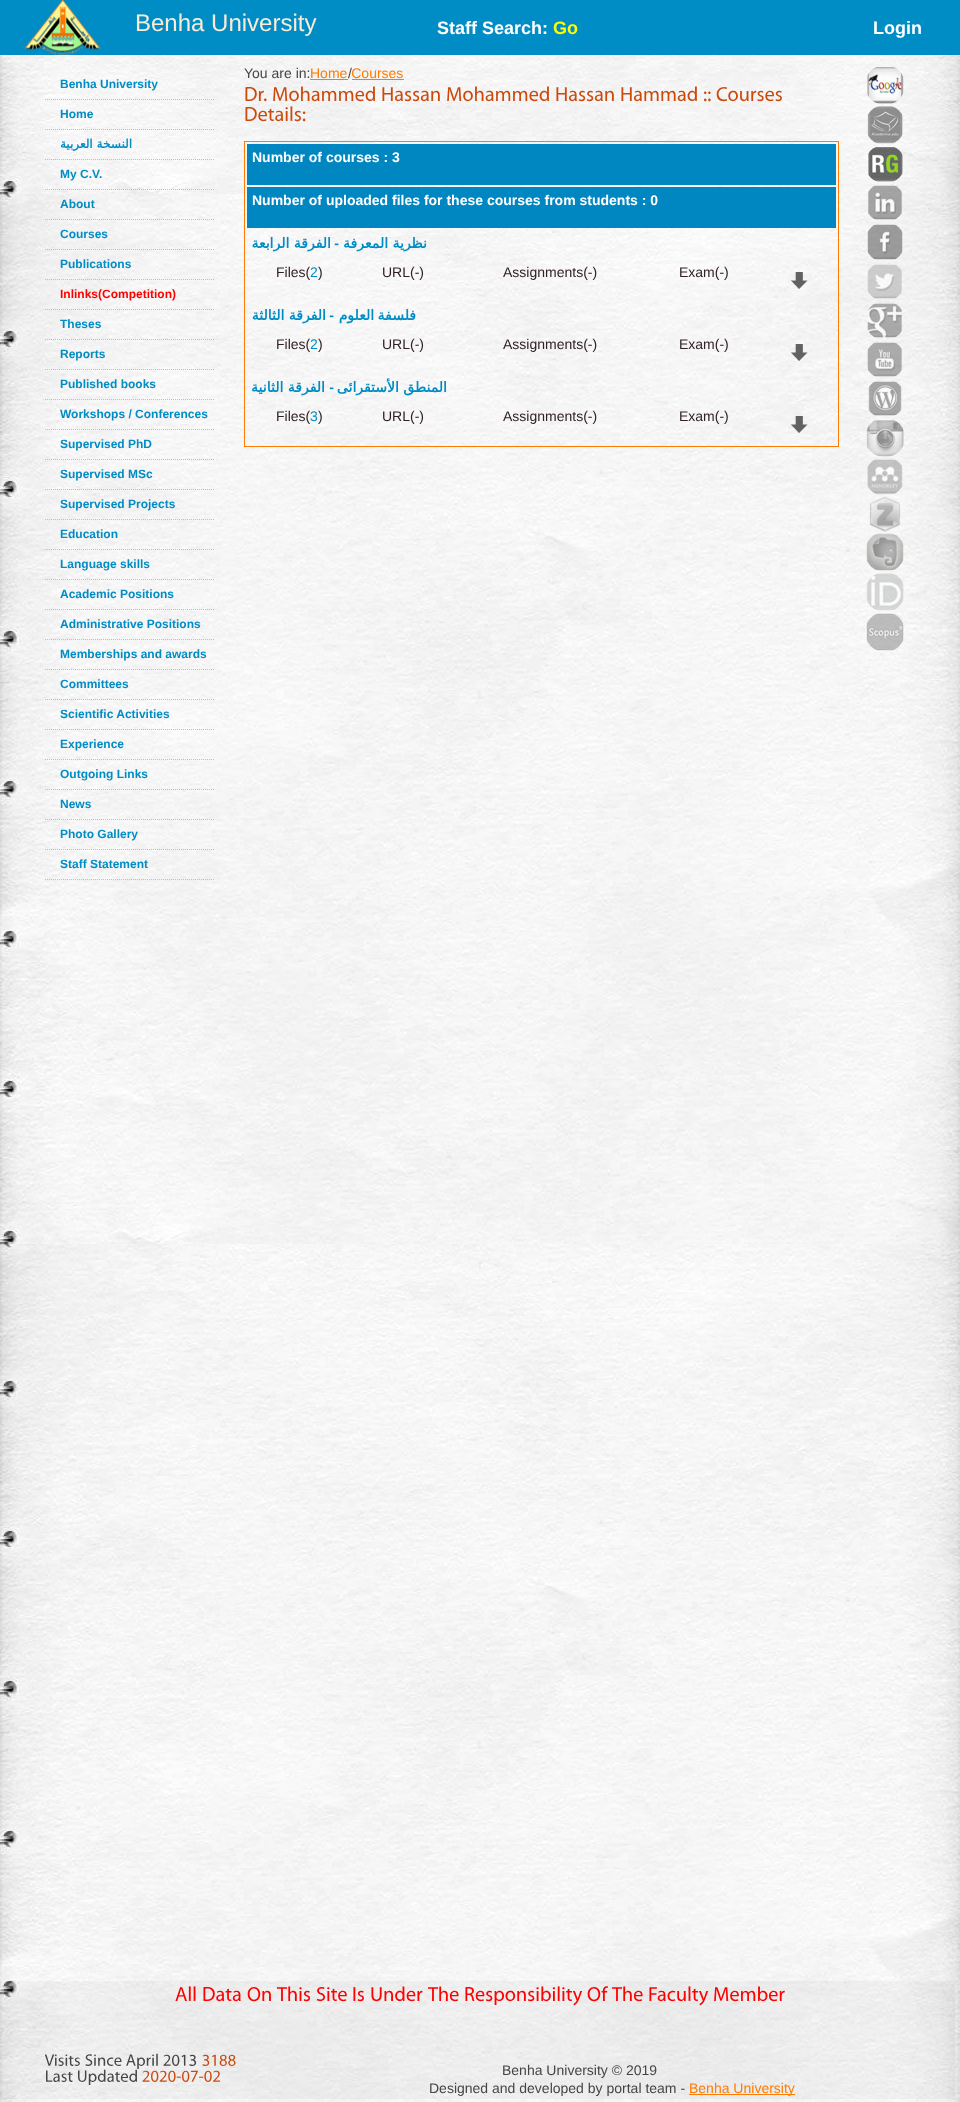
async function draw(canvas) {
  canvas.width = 960;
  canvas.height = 2102;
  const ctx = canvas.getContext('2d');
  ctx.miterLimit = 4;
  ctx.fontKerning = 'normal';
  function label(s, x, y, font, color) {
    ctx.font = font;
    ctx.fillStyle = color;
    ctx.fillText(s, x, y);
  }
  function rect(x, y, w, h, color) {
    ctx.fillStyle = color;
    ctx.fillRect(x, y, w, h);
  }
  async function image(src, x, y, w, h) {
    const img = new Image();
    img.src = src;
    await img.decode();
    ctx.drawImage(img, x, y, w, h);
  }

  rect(0, 0, 960, 2102, '#fff');
  await image('assets/img1.png', 0, 55, 960, 2047);
  rect(0, 0, 960, 55, '#008cc4');
  await image('assets/img2.png', 25, 0, 75, 55);
  label('Benha University', 135, 31, '24px Liberation Sans', '#faebd7');
  label('Staff Search:', 437, 34, 'bold 18px Liberation Sans', '#fff');
  label('Go', 553, 34, 'bold 18px Liberation Sans', '#ff0');
  label('Login', 873, 34, 'bold 18px Liberation Sans', '#fff');
  await image('assets/img3.png', 45, 99, 169, 1);
  label('Benha University', 60, 88, 'bold 12px Liberation Sans', '#008cc4');
  await image('assets/img4.png', 45, 129, 169, 1);
  label('Home', 60, 118, 'bold 12px Liberation Sans', '#008cc4');
  await image('assets/img5.png', 45, 159, 169, 1);
  ctx.direction = 'rtl';
  label('النسخة العربية', 132, 148, 'bold 12px DejaVu Sans', '#008cc4');
  await image('assets/img6.png', 45, 189, 169, 1);
  ctx.direction = 'ltr';
  label('My C.V.', 60, 178, 'bold 12px Liberation Sans', '#008cc4');
  await image('assets/img7.png', 45, 219, 169, 1);
  label('About', 60, 208, 'bold 12px Liberation Sans', '#008cc4');
  await image('assets/img8.png', 45, 249, 169, 1);
  label('Courses', 60, 238, 'bold 12px Liberation Sans', '#008cc4');
  await image('assets/img9.png', 45, 279, 169, 1);
  label('Publications', 60, 268, 'bold 12px Liberation Sans', '#008cc4');
  await image('assets/img10.png', 45, 309, 169, 1);
  label('Inlinks(Competition)', 60, 298, 'bold 12px Liberation Sans', '#f00');
  await image('assets/img11.png', 45, 339, 169, 1);
  label('Theses', 60, 328, 'bold 12px Liberation Sans', '#008cc4');
  await image('assets/img12.png', 45, 369, 169, 1);
  label('Reports', 60, 358, 'bold 12px Liberation Sans', '#008cc4');
  await image('assets/img13.png', 45, 399, 169, 1);
  label('Published books', 60, 388, 'bold 12px Liberation Sans', '#008cc4');
  await image('assets/img14.png', 45, 429, 169, 1);
  label('Workshops / Conferences', 60, 418, 'bold 12px Liberation Sans', '#008cc4');
  await image('assets/img15.png', 45, 459, 169, 1);
  label('Supervised PhD', 60, 448, 'bold 12px Liberation Sans', '#008cc4');
  await image('assets/img16.png', 45, 489, 169, 1);
  label('Supervised MSc', 60, 478, 'bold 12px Liberation Sans', '#008cc4');
  await image('assets/img17.png', 45, 519, 169, 1);
  label('Supervised Projects', 60, 508, 'bold 12px Liberation Sans', '#008cc4');
  await image('assets/img18.png', 45, 549, 169, 1);
  label('Education', 60, 538, 'bold 12px Liberation Sans', '#008cc4');
  await image('assets/img19.png', 45, 579, 169, 1);
  label('Language skills', 60, 568, 'bold 12px Liberation Sans', '#008cc4');
  await image('assets/img20.png', 45, 609, 169, 1);
  label('Academic Positions', 60, 598, 'bold 12px Liberation Sans', '#008cc4');
  await image('assets/img21.png', 45, 639, 169, 1);
  label('Administrative Positions', 60, 628, 'bold 12px Liberation Sans', '#008cc4');
  await image('assets/img22.png', 45, 669, 169, 1);
  label('Memberships and awards', 60, 658, 'bold 12px Liberation Sans', '#008cc4');
  await image('assets/img23.png', 45, 699, 169, 1);
  label('Committees', 60, 688, 'bold 12px Liberation Sans', '#008cc4');
  await image('assets/img24.png', 45, 729, 169, 1);
  label('Scientific Activities', 60, 718, 'bold 12px Liberation Sans', '#008cc4');
  await image('assets/img25.png', 45, 759, 169, 1);
  label('Experience', 60, 748, 'bold 12px Liberation Sans', '#008cc4');
  await image('assets/img26.png', 45, 789, 169, 1);
  label('Outgoing Links', 60, 778, 'bold 12px Liberation Sans', '#008cc4');
  await image('assets/img27.png', 45, 819, 169, 1);
  label('News', 60, 808, 'bold 12px Liberation Sans', '#008cc4');
  await image('assets/img28.png', 45, 849, 169, 1);
  label('Photo Gallery', 60, 838, 'bold 12px Liberation Sans', '#008cc4');
  await image('assets/img29.png', 45, 879, 169, 1);
  label('Staff Statement', 60, 868, 'bold 12px Liberation Sans', '#008cc4');
  label('You are in:', 244, 78, '14px Liberation Sans', '#454545');
  label('Home Courses', 310, 78, '14px Liberation Sans', '#ff7b01');
  label('/', 348, 78, '14px Liberation Sans', '#454545');
  rect(310, 79, 38, 1, '#ff7b01');
  rect(352, 79, 52, 1, '#ff7b01');
  await image('assets/img30.png', 245, 87, 22, 15);
  await image('assets/img31.png', 273, 86, 102, 16);
  await image('assets/img32.png', 382, 87, 58, 15);
  await image('assets/img33.png', 447, 86, 102, 16);
  await image('assets/img34.png', 556, 87, 58, 15);
  await image('assets/img35.png', 621, 86, 76, 16);
  await image('assets/img36.png', 704, 91, 7, 11);
  await image('assets/img37.png', 716, 87, 66, 15);
  await image('assets/img38.png', 245, 106, 61, 16);
  ctx.strokeStyle = '#ff7b01';
  ctx.strokeRect(244.5, 141.5, 594, 305);
  rect(247, 144, 589, 41, '#0087c1');
  label('Number of courses : 3', 252, 162, 'bold 14px Liberation Sans', '#fff');
  rect(247, 187, 589, 41, '#0087c1');
  label('Number of uploaded files for these courses from students : 0', 252, 205, 'bold 14px Liberation Sans', '#fff');
  ctx.direction = 'rtl';
  label('الفرقة الرابعة', 331, 248, 'bold 14px DejaVu Sans', '#008cc4');
  label('-', 339, 248, 'bold 14px Liberation Sans', '#008cc4');
  label('نظرية المعرفة', 427, 248, 'bold 14px DejaVu Sans', '#008cc4');
  ctx.direction = 'ltr';
  label('Files(', 276, 277, '14px Liberation Sans', '#322124');
  label('2', 310, 277, '14px Liberation Sans', '#008cc4');
  label(')', 318, 277, '14px Liberation Sans', '#322124');
  label('URL(-)', 382, 277, '14px Liberation Sans', '#322124');
  label('Assignments(-)', 503, 277, '14px Liberation Sans', '#322124');
  label('Exam(-)', 679, 277, '14px Liberation Sans', '#322124');
  await image('assets/img39.png', 791, 272, 17, 17);
  ctx.direction = 'rtl';
  label('الفرقة الثالثة', 326, 320, 'bold 14px DejaVu Sans', '#008cc4');
  label('-', 334, 320, 'bold 14px Liberation Sans', '#008cc4');
  ctx.wordSpacing = '-1px';
  label('فلسفة العلوم', 416, 320, 'bold 14px DejaVu Sans', '#008cc4');
  ctx.wordSpacing = '0px';
  ctx.direction = 'ltr';
  label('Files(', 276, 349, '14px Liberation Sans', '#322124');
  label('2', 310, 349, '14px Liberation Sans', '#008cc4');
  label(')', 318, 349, '14px Liberation Sans', '#322124');
  label('URL(-)', 382, 349, '14px Liberation Sans', '#322124');
  label('Assignments(-)', 503, 349, '14px Liberation Sans', '#322124');
  label('Exam(-)', 679, 349, '14px Liberation Sans', '#322124');
  await image('assets/img40.png', 791, 344, 17, 17);
  ctx.direction = 'rtl';
  label('الفرقة الثانية', 325, 392, 'bold 14px DejaVu Sans', '#008cc4');
  label('-', 334, 392, 'bold 14px Liberation Sans', '#008cc4');
  label('المنطق الأستقرائى', 447, 392, 'bold 14px DejaVu Sans', '#008cc4');
  ctx.direction = 'ltr';
  label('Files(', 276, 421, '14px Liberation Sans', '#322124');
  label('3', 310, 421, '14px Liberation Sans', '#008cc4');
  label(')', 318, 421, '14px Liberation Sans', '#322124');
  label('URL(-)', 382, 421, '14px Liberation Sans', '#322124');
  label('Assignments(-)', 503, 421, '14px Liberation Sans', '#322124');
  label('Exam(-)', 679, 421, '14px Liberation Sans', '#322124');
  await image('assets/img41.png', 791, 416, 17, 17);
  await image('assets/img42.png', 867, 67, 37, 37);
  await image('assets/img43.png', 867, 106, 36, 38);
  await image('assets/img44.png', 868, 147, 35, 35);
  await image('assets/img45.png', 868, 185, 34, 35);
  await image('assets/img46.png', 867, 224, 36, 36);
  await image('assets/img47.png', 867, 264, 35, 35);
  await image('assets/img48.png', 867, 303, 35, 35);
  await image('assets/img49.png', 867, 342, 35, 35);
  await image('assets/img50.png', 868, 381, 34, 35);
  await image('assets/img51.png', 866, 420, 38, 37);
  await image('assets/img52.png', 867, 459, 36, 36);
  await image('assets/img53.png', 869, 496, 32, 36);
  await image('assets/img54.png', 866, 533, 38, 38);
  await image('assets/img55.png', 866, 573, 38, 38);
  await image('assets/img56.png', 865, 612, 40, 39);
  rect(0, 1981, 955, 118, '#00000008');
  await image('assets/img57.png', 175, 1986, 21, 15);
  await image('assets/img58.png', 203, 1987, 38, 15);
  await image('assets/img59.png', 247, 1987, 24, 15);
  await image('assets/img60.png', 276, 1986, 34, 16);
  await image('assets/img61.png', 316, 1987, 31, 15);
  await image('assets/img62.png', 353, 1987, 11, 15);
  await image('assets/img63.png', 371, 1986, 52, 16);
  await image('assets/img64.png', 427, 1986, 32, 16);
  await image('assets/img65.png', 465, 1986, 118, 20);
  await image('assets/img66.png', 587, 1986, 21, 16);
  await image('assets/img67.png', 611, 1986, 32, 16);
  await image('assets/img68.png', 649, 1986, 60, 20);
  await image('assets/img69.png', 714, 1986, 71, 16);
  await image('assets/img70.png', 45, 2054, 35, 12);
  await image('assets/img71.png', 85, 2054, 37, 12);
  await image('assets/img72.png', 126, 2053, 32, 16);
  await image('assets/img73.png', 163, 2054, 34, 12);
  await image('assets/img74.png', 202, 2054, 34, 12);
  await image('assets/img75.png', 46, 2070, 27, 12);
  await image('assets/img76.png', 78, 2069, 59, 16);
  await image('assets/img77.png', 142, 2070, 79, 12);
  label('Benha University © 2019', 502, 2075, '14px Liberation Sans', '#454545');
  label('Designed and developed by portal team -', 429, 2093, '14px Liberation Sans', '#454545');
  rect(689, 2094, 106, 1, '#ff7b01');
  label('Benha University', 689, 2093, '14px Liberation Sans', '#ff7b01');
}

draw(document.querySelector('canvas'));
